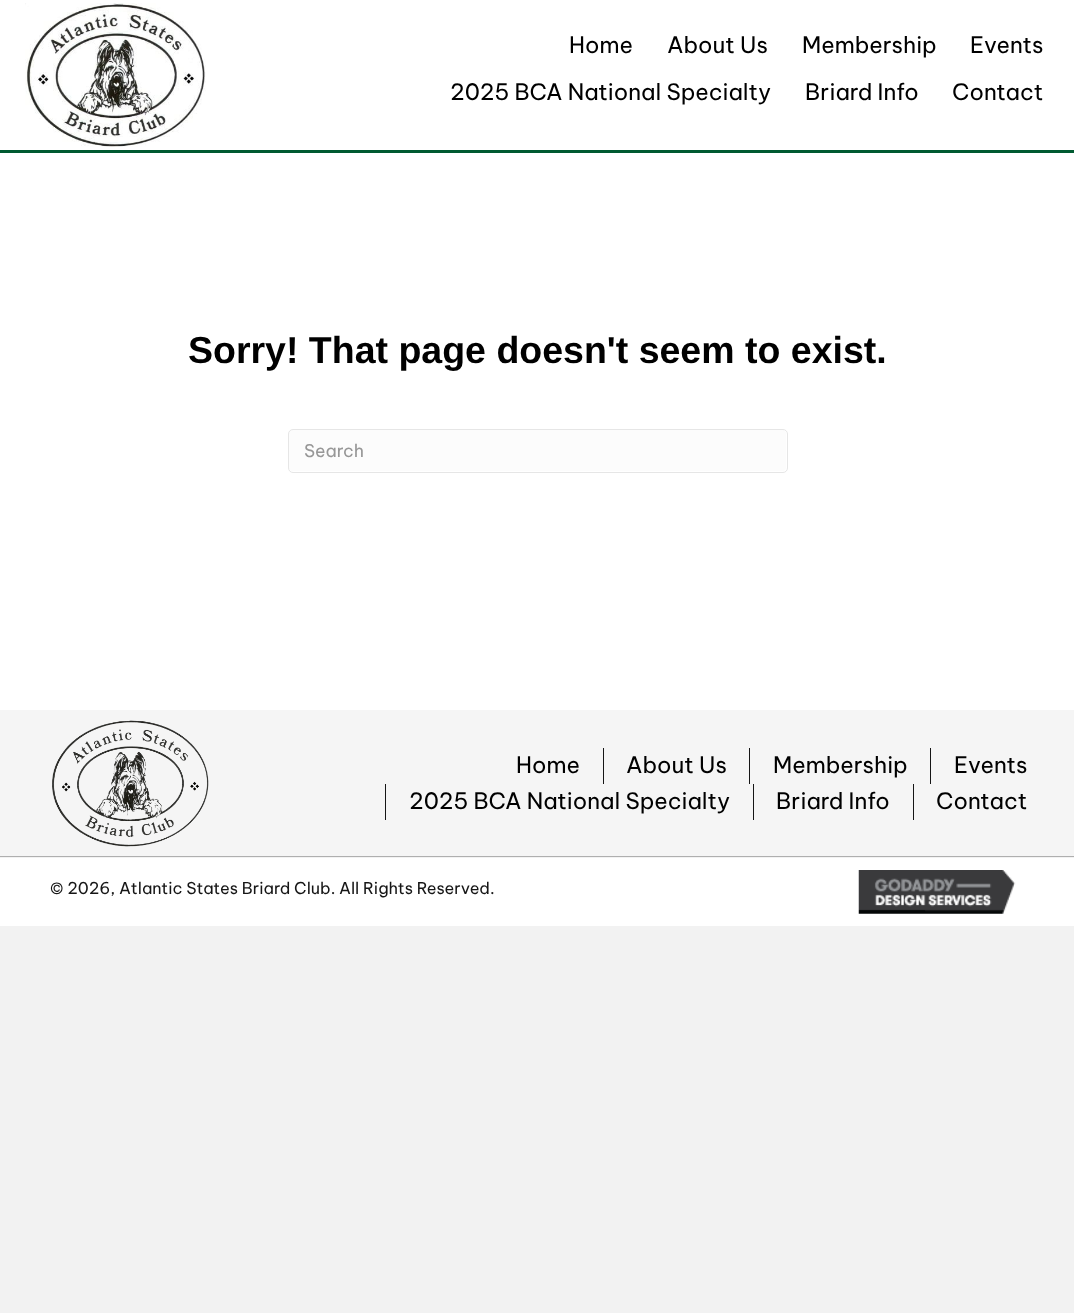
async function draw(canvas) {
  canvas.width = 1074;
  canvas.height = 1313;
  const ctx = canvas.getContext('2d');
  ctx.miterLimit = 4;
  ctx.fontKerning = 'normal';
  function label(s, x, y, font, color) {
    ctx.font = font;
    ctx.fillStyle = color;
    ctx.fillText(s, x, y);
  }
  function rect(x, y, w, h, color) {
    ctx.fillStyle = color;
    ctx.fillRect(x, y, w, h);
  }
  function roundedRect(x, y, w, h, r, color) {
    ctx.fillStyle = color;
    ctx.beginPath();
    ctx.roundRect(x, y, w, h, r);
    ctx.fill();
  }
  async function image(src, x, y, w, h) {
    const img = new Image();
    img.src = src;
    await img.decode();
    ctx.drawImage(img, x, y, w, h);
  }

  rect(0, 0, 1074, 1313, '#f2f2f2');
  rect(0, 0, 1074, 150, '#fff');
  rect(0, 150, 1074, 3, '#005a31');
  await image('assets/img1.png', 25, 3, 181, 144);
  label('Home', 569, 53, '22.5px Be Vietnam Pro', '#000');
  label('About Us', 667, 53, '22.5px Be Vietnam Pro', '#000');
  label('Membership', 802, 53, '22.5px Be Vietnam Pro', '#000');
  label('Events', 970, 53, '22.5px Be Vietnam Pro', '#000');
  label('2025 BCA National Specialty', 450, 100, '22.5px Be Vietnam Pro', '#000');
  label('Briard Info', 805, 100, '22.5px Be Vietnam Pro', '#000');
  label('Contact', 952, 100, '22.5px Be Vietnam Pro', '#000');
  rect(0, 153, 1074, 557, '#fff');
  label('Sorry! That page doesn\'t seem to exist.', 188, 363, 'bold 37.5px Liberation Sans', '#000');
  roundedRect(289, 430, 497, 41, 4, '#fcfcfc');
  ctx.beginPath();
  ctx.roundRect(288.5, 429.5, 499, 43, 4.5);
  ctx.strokeStyle = '#e6e6e6';
  ctx.stroke();
  label('Search', 304, 457, '17.5px Be Vietnam Pro', '#979797');
  rect(0, 710, 1074, 146, '#f5f5f5');
  await image('assets/img2.png', 52, 720, 157, 127);
  label('Home', 516, 773, '22.5px Be Vietnam Pro', '#000');
  rect(603, 748, 1, 36, '#161616');
  label('About Us', 626, 773, '22.5px Be Vietnam Pro', '#000');
  rect(749, 748, 1, 36, '#161616');
  label('Membership', 773, 773, '22.5px Be Vietnam Pro', '#000');
  rect(930, 748, 1, 36, '#161616');
  label('Events', 954, 773, '22.5px Be Vietnam Pro', '#000');
  rect(385, 784, 1, 36, '#161616');
  label('2025 BCA National Specialty', 409, 809, '22.5px Be Vietnam Pro', '#000');
  rect(753, 784, 1, 36, '#161616');
  label('Briard Info', 776, 809, '22.5px Be Vietnam Pro', '#000');
  rect(913, 784, 1, 36, '#161616');
  label('Contact', 936, 809, '22.5px Be Vietnam Pro', '#000');
  rect(0, 858, 1074, 68, '#fff');
  rect(0, 856, 1074, 1, '#afafaf');
  label('© 2026, Atlantic States Briard Club. All Rights Reserved.', 50, 894, '16.25px Be Vietnam Pro', '#161616');
  await image('assets/img3.png', 858, 870, 158, 44);
}

draw(document.querySelector('canvas'));
